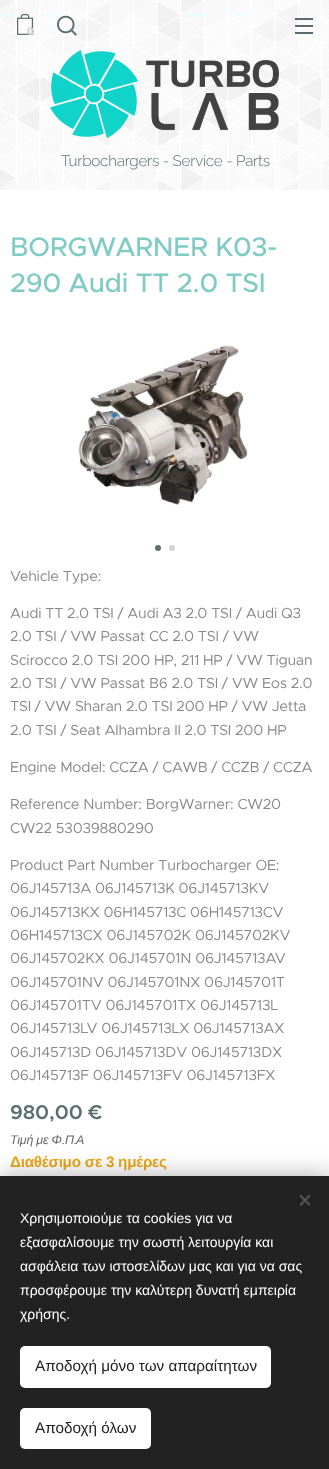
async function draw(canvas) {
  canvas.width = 329;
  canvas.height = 1469;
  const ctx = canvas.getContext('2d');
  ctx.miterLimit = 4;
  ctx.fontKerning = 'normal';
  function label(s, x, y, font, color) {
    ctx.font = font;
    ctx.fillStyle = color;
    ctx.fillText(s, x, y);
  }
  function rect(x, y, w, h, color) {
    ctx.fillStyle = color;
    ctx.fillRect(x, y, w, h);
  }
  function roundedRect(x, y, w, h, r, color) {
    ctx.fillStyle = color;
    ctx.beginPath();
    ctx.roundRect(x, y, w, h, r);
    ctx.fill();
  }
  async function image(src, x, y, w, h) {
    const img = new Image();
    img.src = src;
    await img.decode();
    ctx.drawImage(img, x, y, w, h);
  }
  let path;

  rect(0, 0, 329, 1469, '#fff');
  await image('assets/img1.png', 0, 0, 329, 190);
  await image('assets/img2.png', 17, 13, 17, 22);
  label('0', 27, 35, 'bold 11px Montserrat', '#cdd2d2');
  await image('assets/img3.png', 57, 15, 20, 21);
  rect(295, 25, 18, 2, '#475b5ce6');
  rect(295, 18, 18, 2, '#475b5ce6');
  rect(295, 32, 18, 2, '#475b5ce6');
  await image('assets/img4.png', 50, 50, 229, 88);
  ctx.letterSpacing = '-0.25px';
  label('Turbochargers - Service - Parts', 61, 166, '300 15.25px Raleway', '#5b6f70');
  label('BORGWARNER K03-', 10, 256, '500 27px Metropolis', '#80cbc4');
  label('290 Audi TT 2.0 TSI', 10, 292, '500 27px Metropolis', '#80cbc4');
  await image('assets/img5.png', 78, 345, 170, 160);
  ctx.fillStyle = '#5b6f70';
  ctx.beginPath();
  ctx.arc(158, 548, 3, 0, 2 * Math.PI);
  ctx.fill();
  ctx.fillStyle = '#d4d4d4';
  ctx.beginPath();
  ctx.arc(172, 548, 3, 0, 2 * Math.PI);
  ctx.fill();
  label('Vehicle Type:', 10, 581, '14.6px Metropolis', '#888');
  label('Audi TT 2.0 TSI / Audi A3 2.0 TSI / Audi Q3', 10, 618, '14.6px Metropolis', '#888');
  label('2.0 TSI / VW Passat CC 2.0 TSI / VW', 10, 641, '14.6px Metropolis', '#888');
  label('Scirocco 2.0 TSI 200 HP, 211 HP / VW Tiguan', 10, 665, '14.6px Metropolis', '#888');
  label('2.0 TSI / VW Passat B6 2.0 TSI / VW Eos 2.0', 10, 688, '14.6px Metropolis', '#888');
  label('TSI / VW Sharan 2.0 TSI 200 HP / VW Jetta', 10, 711, '14.6px Metropolis', '#888');
  label('2.0 TSI / Seat Alhambra II 2.0 TSI 200 HP', 10, 735, '14.6px Metropolis', '#888');
  label('Engine Model: CCZA / CAWB / CCZB / CCZA', 10, 772, '14.6px Metropolis', '#888');
  label('Reference Number: BorgWarner: CW20', 10, 809, '14.6px Metropolis', '#888');
  label('CW22 53039880290', 10, 833, '14.6px Metropolis', '#888');
  label('Product Part Number Turbocharger OE:', 10, 870, '14.6px Metropolis', '#888');
  label('06J145713A 06J145713K 06J145713KV', 10, 893, '14.6px Metropolis', '#888');
  label('06J145713KX 06H145713C 06H145713CV', 10, 917, '14.6px Metropolis', '#888');
  label('06H145713CX 06J145702K 06J145702KV', 10, 940, '14.6px Metropolis', '#888');
  label('06J145702KX 06J145701N 06J145713AV', 10, 963, '14.6px Metropolis', '#888');
  label('06J145701NV 06J145701NX 06J145701T', 10, 987, '14.6px Metropolis', '#888');
  label('06J145701TV 06J145701TX 06J145713L', 10, 1010, '14.6px Metropolis', '#888');
  label('06J145713LV 06J145713LX 06J145713AX', 10, 1033, '14.6px Metropolis', '#888');
  label('06J145713D 06J145713DV 06J145713DX', 10, 1057, '14.6px Metropolis', '#888');
  label('06J145713F 06J145713FV 06J145713FX', 10, 1080, '14.6px Metropolis', '#888');
  ctx.letterSpacing = '0px';
  label('980,00 €', 10, 1119, '600 20px Metropolis', '#5b6f70');
  ctx.letterSpacing = '-0.25px';
  label('Τιμή με Φ', 10, 1144, 'italic 12.5px Liberation Sans', '#666');
  label('.', 62, 1144, 'italic 12.5px Metropolis', '#666');
  label('Π', 65, 1144, 'italic 12.5px Liberation Sans', '#666');
  label('.', 74, 1144, 'italic 12.5px Metropolis', '#666');
  label('Α', 76, 1144, 'italic 12.5px Liberation Sans', '#666');
  label('Διαθέσιμο σε 3 ημέρες', 10, 1167, 'bold 15.25px Liberation Sans', '#eaa81a');
  ctx.fillStyle = '#00000054';
  ctx.filter = 'blur(12.5px)';
  ctx.beginPath();
  ctx.rect(0, 1176, 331, 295);
  ctx.fill();
  ctx.filter = 'none';
  rect(0, 1176, 329, 293, '#222');
  ctx.fillStyle = '#555';
  path = new Path2D('M299.5 1204.5L309 1194.5L310.5 1196L301 1206Z');
  ctx.fill(path);
  path = new Path2D('M301 1194.5L310.5 1204.5L309 1206L299.5 1196Z');
  ctx.fill(path);
  ctx.letterSpacing = '0px';
  label('Χρησιμοποιούμε τα cookies για να', 20, 1223, '14px Liberation Sans', '#fff');
  label('εξασφαλίσουμε την σωστή λειτουργία και', 20, 1247, '14px Liberation Sans', '#fff');
  label('ασφάλεια των ιστοσελίδων μας και για να σας', 20, 1271, '14px Liberation Sans', '#fff');
  label('προσφέρουμε την καλύτερη δυνατή εμπειρία', 20, 1295, '14px Liberation Sans', '#fff');
  label('χρήσης.', 20, 1319, '14px Liberation Sans', '#fff');
  roundedRect(20, 1346, 251, 42, 5, '#fff');
  label('Αποδοχή μόνο των απαραίτητων', 35, 1371, '15.25px Liberation Sans', '#222');
  roundedRect(20, 1408, 131, 41, 5, '#fff');
  label('Αποδοχή όλων', 35, 1433, '15.25px Liberation Sans', '#222');
}

draw(document.querySelector('canvas'));
